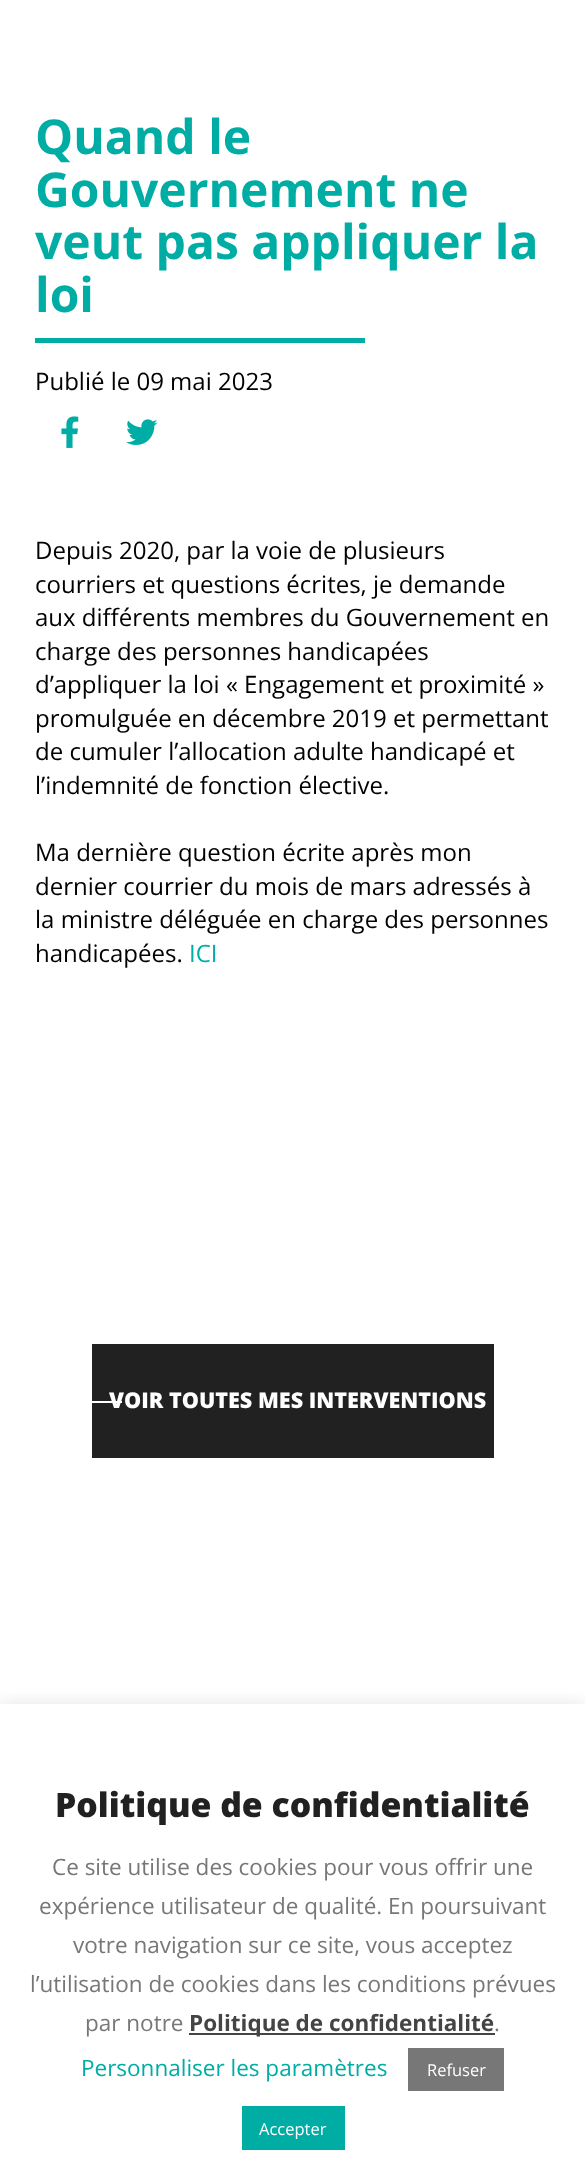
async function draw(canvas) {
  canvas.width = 585;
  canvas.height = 2175;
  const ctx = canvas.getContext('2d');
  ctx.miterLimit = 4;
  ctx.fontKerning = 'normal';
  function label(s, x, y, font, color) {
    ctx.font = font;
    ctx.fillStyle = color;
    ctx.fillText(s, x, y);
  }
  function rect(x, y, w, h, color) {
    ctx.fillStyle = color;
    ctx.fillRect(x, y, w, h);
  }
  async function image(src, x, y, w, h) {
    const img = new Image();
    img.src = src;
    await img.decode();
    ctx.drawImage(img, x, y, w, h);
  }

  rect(0, 0, 585, 2175, '#fff');
  label('Quand le', 35, 154, 'bold 48px Open Sans', '#00ada4');
  label('Gouvernement ne', 35, 207, 'bold 48px Open Sans', '#00ada4');
  label('veut pas appliquer la', 35, 259, 'bold 48px Open Sans', '#00ada4');
  label('loi', 35, 312, 'bold 48px Open Sans', '#00ada4');
  rect(35, 338, 330, 5, '#00ada4');
  label('Publié le 09 mai 2023', 35, 390, '24px Open Sans', '#000');
  await image('assets/img1.png', 61, 416, 18, 32);
  await image('assets/img2.png', 126, 419, 32, 26);
  label('Depuis 2020, par la voie de plusieurs', 35, 559, '24px Open Sans', '#000');
  label('courriers et questions écrites, je demande', 35, 593, '24px Open Sans', '#000');
  label('aux différents membres du Gouvernement en', 35, 626, '24px Open Sans', '#000');
  label('charge des personnes handicapées', 35, 660, '24px Open Sans', '#000');
  label('d’appliquer la loi « Engagement et proximité »', 35, 693, '24px Open Sans', '#000');
  label('promulguée en décembre 2019 et permettant', 35, 727, '24px Open Sans', '#000');
  label('de cumuler l’allocation adulte handicapé et', 35, 760, '24px Open Sans', '#000');
  label('l’indemnité de fonction élective.', 35, 794, '24px Open Sans', '#000');
  label('Ma dernière question écrite après mon', 35, 861, '24px Open Sans', '#000');
  label('dernier courrier du mois de mars adressés à', 35, 895, '24px Open Sans', '#000');
  label('la ministre déléguée en charge des personnes', 35, 928, '24px Open Sans', '#000');
  label('handicapées.', 35, 962, '24px Open Sans', '#000');
  label('ICI', 189, 962, '24px Open Sans', '#00ada4');
  rect(92, 1344, 402, 114, '#222121');
  rect(92, 1401, 30, 2, '#fff');
  label('VOIR TOUTES MES INTERVENTIONS', 109, 1408, '800 21.6px Open Sans', '#fff');
  ctx.save();
  ctx.beginPath();
  ctx.rect(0, 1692, 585, 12);
  ctx.clip();
  ctx.fillStyle = '#acabab4d';
  ctx.filter = 'blur(7.5px)';
  ctx.beginPath();
  ctx.rect(0, 1703, 585, 471);
  ctx.fill();
  ctx.filter = 'none';
  ctx.restore();
  label('Politique de confidentialité', 55, 1817, '800 33.75px Open Sans', '#222121');
  label('Ce site utilise des cookies pour vous offrir une', 52, 1875, '22.5px Open Sans', '#777');
  label('expérience utilisateur de qualité. En poursuivant', 39, 1914, '22.5px Open Sans', '#777');
  label('votre navigation sur ce site, vous acceptez', 73, 1953, '22.5px Open Sans', '#777');
  label('l’utilisation de cookies dans les conditions prévues', 30, 1992, '22.5px Open Sans', '#777');
  label('par notre', 85, 2031, '22.5px Open Sans', '#777');
  rect(189, 2033, 306, 2, '#444');
  label('Politique de confidentialité', 189, 2031, 'bold 22.5px Open Sans', '#444');
  label('.', 494, 2031, '22.5px Open Sans', '#777');
  label('Personnaliser les paramètres', 81, 2076, '22.5px Open Sans', '#00ada4');
  rect(408, 2048, 96, 43, '#777');
  label('Refuser', 427, 2076, '16.5px Open Sans', '#fff');
  rect(242, 2106, 103, 44, '#00ada4');
  label('Accepter', 259, 2135, '16.5px Open Sans', '#fff');
}

draw(document.querySelector('canvas'));
